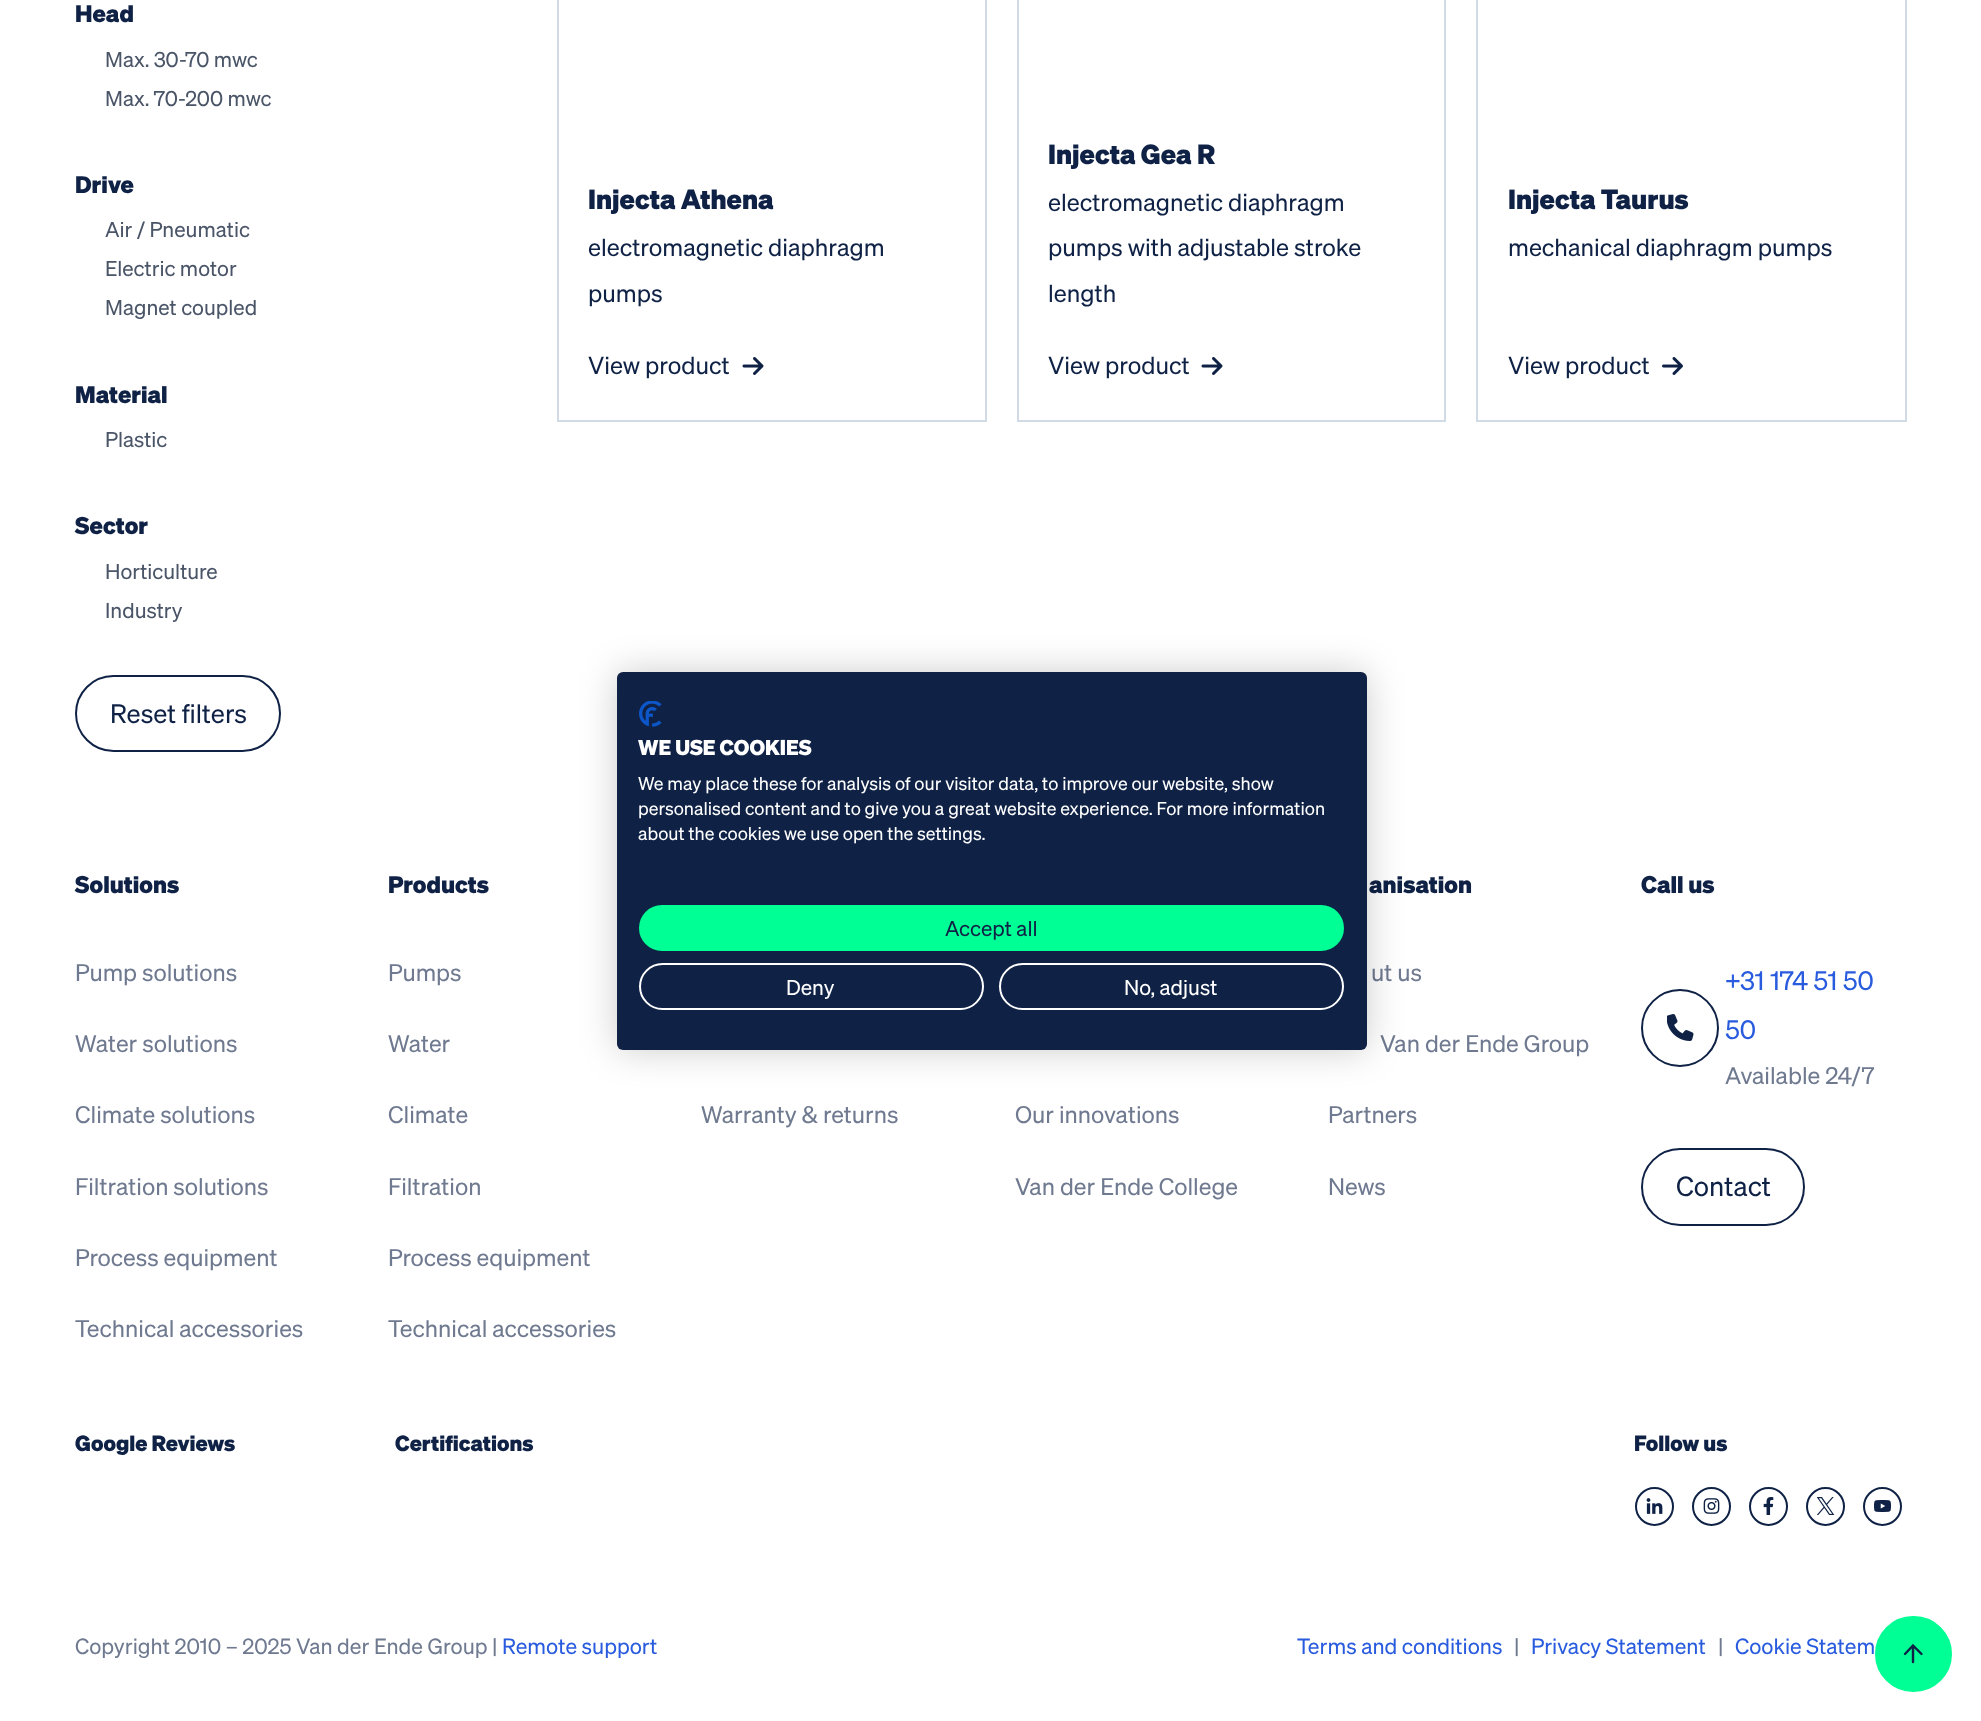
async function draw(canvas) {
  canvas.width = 1981;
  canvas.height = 1721;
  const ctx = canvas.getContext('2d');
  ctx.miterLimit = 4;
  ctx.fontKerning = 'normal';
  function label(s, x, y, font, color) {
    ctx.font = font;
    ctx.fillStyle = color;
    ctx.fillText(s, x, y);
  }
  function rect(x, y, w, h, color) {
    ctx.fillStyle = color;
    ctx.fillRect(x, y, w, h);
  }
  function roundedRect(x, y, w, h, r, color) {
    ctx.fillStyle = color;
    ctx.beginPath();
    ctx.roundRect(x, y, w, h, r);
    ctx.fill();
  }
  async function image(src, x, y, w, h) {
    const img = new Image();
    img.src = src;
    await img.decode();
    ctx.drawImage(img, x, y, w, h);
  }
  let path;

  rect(0, 0, 1981, 1721, '#fff');
  label('Head', 75, 22, '800 23.5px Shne', '#0f2246');
  label('Max. 30-70 mwc', 105, 67, '21px Shne', '#4a5568');
  label('Max. 70-200 mwc', 105, 106, '21px Shne', '#4a5568');
  label('Drive', 75, 193, '800 23.5px Shne', '#0f2246');
  label('Air / Pneumatic', 105, 237, '21px Shne', '#4a5568');
  label('Electric motor', 105, 276, '21px Shne', '#4a5568');
  label('Magnet coupled', 105, 315, '21px Shne', '#4a5568');
  label('Material', 75, 403, '800 23.5px Shne', '#0f2246');
  label('Plastic', 105, 447, '21px Shne', '#4a5568');
  label('Sector', 75, 534, '800 23.5px Shne', '#0f2246');
  label('Horticulture', 105, 579, '21px Shne', '#4a5568');
  label('Industry', 105, 618, '21px Shne', '#4a5568');
  ctx.beginPath();
  ctx.roundRect(76, 676, 204, 75, 37.5);
  ctx.strokeStyle = '#0f2246';
  ctx.lineWidth = 2;
  ctx.stroke();
  label('Reset filters', 110, 723, '26px Shne', '#0f2246');
  ctx.strokeStyle = '#d1dbe5';
  ctx.strokeRect(558, -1, 428, 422);
  label('Injecta Athena', 588, 209, '800 27px Shne', '#0f2246');
  label('electromagnetic diaphragm', 588, 256, '24px Shne', '#0f2246');
  label('pumps', 588, 302, '24px Shne', '#0f2246');
  label('View product', 588, 374, '24px Shne', '#0f2246');
  await image('assets/img1.png', 742, 357, 22, 18);
  ctx.strokeRect(1018, -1, 427, 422);
  label('Injecta Gea R', 1048, 164, '800 27px Shne', '#0f2246');
  label('electromagnetic diaphragm', 1048, 211, '24px Shne', '#0f2246');
  label('pumps with adjustable stroke', 1048, 256, '24px Shne', '#0f2246');
  label('length', 1048, 302, '24px Shne', '#0f2246');
  label('View product', 1048, 374, '24px Shne', '#0f2246');
  await image('assets/img1.png', 1201, 357, 22, 18);
  ctx.strokeRect(1477, -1, 429, 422);
  label('Injecta Taurus', 1508, 209, '800 27px Shne', '#0f2246');
  label('mechanical diaphragm pumps', 1508, 256, '24px Shne', '#0f2246');
  label('View product', 1508, 374, '24px Shne', '#0f2246');
  await image('assets/img2.png', 1662, 357, 21, 18);
  label('Solutions', 75, 893, '800 23.5px Shne', '#0f2246');
  label('Pump solutions', 75, 981, '23.5px Shne', '#6f7a90');
  label('Water solutions', 75, 1052, '23.5px Shne', '#6f7a90');
  label('Climate solutions', 75, 1123, '23.5px Shne', '#6f7a90');
  label('Filtration solutions', 75, 1195, '23.5px Shne', '#6f7a90');
  label('Process equipment', 75, 1266, '23.5px Shne', '#6f7a90');
  label('Technical accessories', 75, 1337, '23.5px Shne', '#6f7a90');
  label('Products', 388, 893, '800 23.5px Shne', '#0f2246');
  label('Pumps', 388, 981, '23.5px Shne', '#6f7a90');
  label('Water', 388, 1052, '23.5px Shne', '#6f7a90');
  label('Climate', 388, 1123, '23.5px Shne', '#6f7a90');
  label('Filtration', 388, 1195, '23.5px Shne', '#6f7a90');
  label('Process equipment', 388, 1266, '23.5px Shne', '#6f7a90');
  label('Technical accessories', 388, 1337, '23.5px Shne', '#6f7a90');
  label('Warranty & returns', 701, 1123, '23.5px Shne', '#6f7a90');
  label('Our innovations', 1015, 1123, '23.5px Shne', '#6f7a90');
  label('Van der Ende College', 1015, 1195, '23.5px Shne', '#6f7a90');
  label('anisation', 1369, 893, '800 23.5px Shne', '#0f2246');
  label('ut us', 1371, 981, '23.5px Shne', '#6f7a90');
  label('Van der Ende Group', 1380, 1052, '23.5px Shne', '#6f7a90');
  label('Partners', 1328, 1123, '23.5px Shne', '#6f7a90');
  label('News', 1328, 1195, '23.5px Shne', '#6f7a90');
  label('Call us', 1641, 893, '800 23.5px Shne', '#0f2246');
  ctx.beginPath();
  ctx.arc(1680, 1028, 38, 0, 2 * Math.PI);
  ctx.strokeStyle = '#0f2246';
  ctx.stroke();
  await image('assets/img3.png', 1667, 1014, 27, 27);
  label('+31 174 51 50', 1725, 990, '26px Shne', '#295bde');
  label('50', 1725, 1039, '26px Shne', '#295bde');
  label('Available 24/7', 1725, 1084, '23.5px Shne', '#6f7a90');
  ctx.beginPath();
  ctx.roundRect(1642, 1149, 162, 76, 38);
  ctx.stroke();
  label('Contact', 1676, 1196, '27px Shne', '#0f2246');
  label('Google Reviews', 75, 1451, '800 21.5px Shne', '#0f2246');
  label('Certifications', 395, 1451, '800 21.5px Shne', '#0f2246');
  label('Follow us', 1634, 1451, '800 21.5px Shne', '#0f2246');
  ctx.beginPath();
  ctx.arc(1654.5, 1506.5, 18.5, 0, 2 * Math.PI);
  ctx.stroke();
  await image('assets/img4.png', 1646, 1498, 17, 16);
  ctx.beginPath();
  ctx.arc(1711.5, 1506.5, 18.5, 0, 2 * Math.PI);
  ctx.stroke();
  await image('assets/img5.png', 1703, 1498, 17, 16);
  ctx.beginPath();
  ctx.arc(1768.5, 1506.5, 18.5, 0, 2 * Math.PI);
  ctx.stroke();
  await image('assets/img6.png', 1763, 1497, 11, 18);
  ctx.beginPath();
  ctx.arc(1825.5, 1506.5, 18.5, 0, 2 * Math.PI);
  ctx.stroke();
  await image('assets/img7.png', 1817, 1497, 18, 18);
  ctx.beginPath();
  ctx.arc(1882.5, 1506.5, 18.5, 0, 2 * Math.PI);
  ctx.stroke();
  await image('assets/img8.png', 1874, 1500, 17, 12);
  label('Copyright 2010 – 2025 Van der Ende Group |', 75, 1654, '21.5px Shne', '#6f7a90');
  label('Remote support', 502, 1654, '21.5px Shne', '#295bde');
  label('Terms and conditions', 1297, 1654, '21.5px Shne', '#295bde');
  label('|', 1514, 1654, '21.5px Shne', '#6f7a90');
  label('Privacy Statement', 1531, 1654, '21.5px Shne', '#295bde');
  label('|', 1718, 1654, '21.5px Shne', '#6f7a90');
  label('Cookie Statem', 1735, 1654, '21.5px Shne', '#295bde');
  ctx.fillStyle = '#00ff94';
  ctx.beginPath();
  ctx.roundRect(1876, 1617, 75, 74, 37);
  ctx.fill();
  ctx.strokeStyle = '#00ff94';
  ctx.stroke();
  path = new Path2D('M1913 1662V1645.5M1905 1654L1913 1645.5L1921.5 1654');
  ctx.strokeStyle = '#0f2246';
  ctx.lineWidth = 2.4;
  ctx.lineCap = 'round';
  ctx.lineJoin = 'round';
  ctx.stroke(path);
  ctx.fillStyle = '#00000033';
  ctx.filter = 'blur(18px)';
  ctx.beginPath();
  ctx.roundRect(617, 672, 750, 378, 6);
  ctx.fill();
  ctx.filter = 'none';
  roundedRect(617, 672, 750, 378, 6, '#0f2246');
  await image('assets/img9.png', 639, 701, 23, 26);
  label('WE USE COOKIES', 638, 755, '800 21px Shne', '#fff');
  label('We may place these for analysis of our visitor data, to improve our website, show', 638, 790, '18px Shne', '#fff');
  label('personalised content and to give you a great website experience. For more information', 638, 815, '18px Shne', '#fff');
  label('about the cookies we use open the settings.', 638, 840, '18px Shne', '#fff');
  ctx.fillStyle = '#00ff94';
  ctx.beginPath();
  ctx.roundRect(640, 906, 703, 44, 22);
  ctx.fill();
  ctx.strokeStyle = '#00ff94';
  ctx.lineWidth = 2;
  ctx.lineJoin = 'miter';
  ctx.stroke();
  label('Accept all', 945, 936, '21px Shne', '#0f2246');
  ctx.beginPath();
  ctx.roundRect(640, 964, 343, 45, 22.5);
  ctx.strokeStyle = '#fff';
  ctx.stroke();
  label('Deny', 786, 995, '21px Shne', '#fff');
  ctx.beginPath();
  ctx.roundRect(1000, 964, 343, 45, 22.5);
  ctx.stroke();
  label('No, adjust', 1124, 995, '21px Shne', '#fff');
}

draw(document.querySelector('canvas'));
